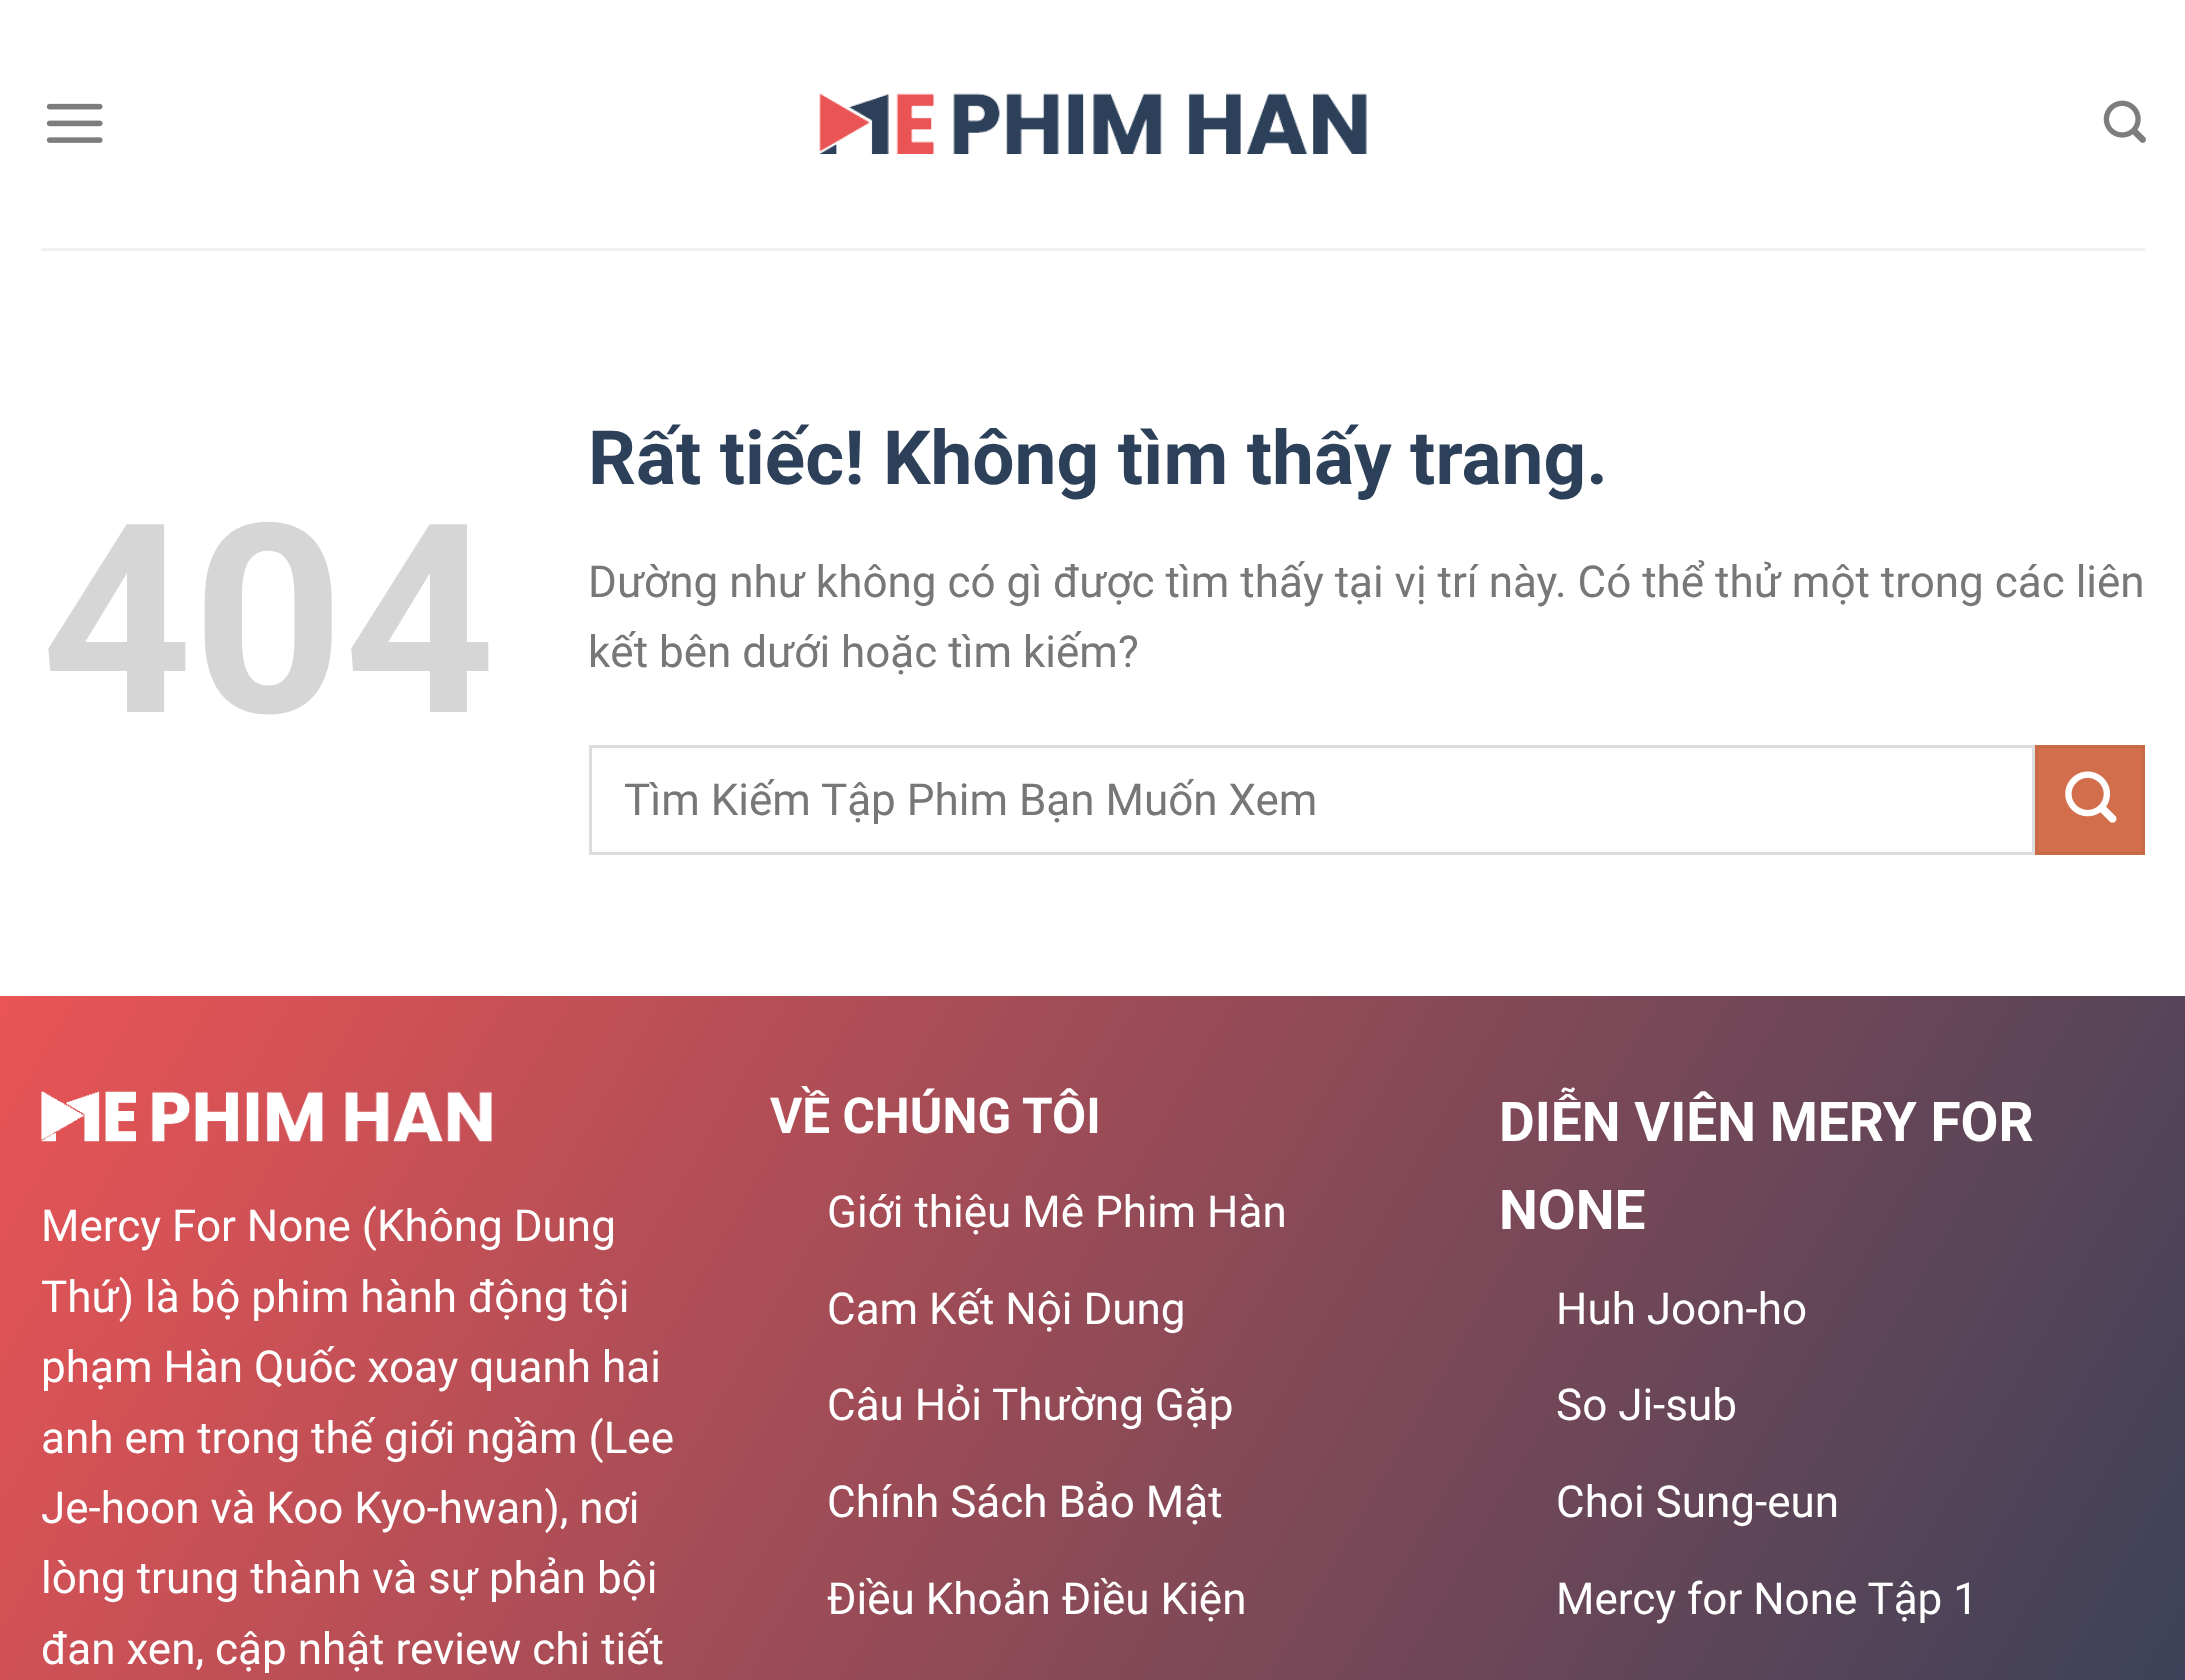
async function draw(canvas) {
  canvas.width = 2185;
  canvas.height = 1680;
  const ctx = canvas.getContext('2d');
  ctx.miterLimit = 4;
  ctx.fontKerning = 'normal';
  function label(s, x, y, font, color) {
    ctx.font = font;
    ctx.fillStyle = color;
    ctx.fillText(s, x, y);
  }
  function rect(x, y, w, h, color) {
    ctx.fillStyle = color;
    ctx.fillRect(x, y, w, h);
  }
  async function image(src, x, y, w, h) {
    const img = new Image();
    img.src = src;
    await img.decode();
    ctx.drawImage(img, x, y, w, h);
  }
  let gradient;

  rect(0, 0, 2185, 1680, '#fff');
  await image('assets/img1.png', 46, 103, 57, 40);
  await image('assets/img2.png', 819, 93, 548, 61);
  await image('assets/img3.png', 2103, 100, 43, 43);
  rect(41, 248, 2104, 3, '#f1f1f1');
  label('404', 41, 712, 'bold 264px Roboto', '#d6d6d6');
  label('Rất tiếc! Không tìm thấy trang.', 588, 484, 'bold 74.75px Roboto', '#2d4059');
  label('Dường như không có gì được tìm thấy tại vị trí này. Có thể thử một trong các liên', 588, 597, '44px Roboto', '#777');
  label('kết bên dưới hoặc tìm kiếm?', 588, 667, '44px Roboto', '#777');
  ctx.strokeStyle = '#ddd';
  ctx.lineWidth = 3;
  ctx.strokeRect(590.5, 746.5, 1443, 107);
  label('Tìm Kiếm Tập Phim Bạn Muốn Xem', 624, 815, '44px Roboto', '#777');
  ctx.fillStyle = '#d26e4b';
  ctx.beginPath();
  ctx.rect(2036.5, 746.5, 107, 107);
  ctx.fill();
  ctx.strokeStyle = '#c86947';
  ctx.stroke();
  await image('assets/img4.png', 2065, 771, 52, 52);
  gradient = ctx.createLinearGradient(45, 918, 2142, 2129);
  gradient.addColorStop(0, '#ea5455');
  gradient.addColorStop(1, '#2d4059');
  ctx.fillStyle = gradient;
  ctx.fillRect(0, 996, 2185, 684);
  await image('assets/img5.png', 41, 1091, 451, 51);
  label('Mercy For None (Không Dung', 41, 1241, '44px Roboto', '#fff');
  label('Thứ) là bộ phim hành động tội', 41, 1312, '44px Roboto', '#fff');
  label('phạm Hàn Quốc xoay quanh hai', 41, 1382, '44px Roboto', '#fff');
  label('anh em trong thế giới ngầm (Lee', 41, 1453, '44px Roboto', '#fff');
  label('Je-hoon và Koo Kyo-hwan), nơi', 41, 1523, '44px Roboto', '#fff');
  label('lòng trung thành và sự phản bội', 41, 1593, '44px Roboto', '#fff');
  label('đan xen, cập nhật review chi tiết', 41, 1664, '44px Roboto', '#fff');
  label('VỀ CHÚNG TÔI', 770, 1133, 'bold 49.5px Roboto', '#fff');
  label('Giới thiệu Mê Phim Hàn', 827, 1227, '44px Roboto', '#fff');
  label('Cam Kết Nội Dung', 827, 1324, '44px Roboto', '#fff');
  label('Câu Hỏi Thường Gặp', 827, 1420, '44px Roboto', '#fff');
  label('Chính Sách Bảo Mật', 827, 1517, '44px Roboto', '#fff');
  label('Điều Khoản Điều Kiện', 827, 1614, '44px Roboto', '#fff');
  label('DIỄN VIÊN MERY FOR', 1499, 1141, 'bold 55px Roboto', '#fff');
  label('NONE', 1499, 1229, 'bold 55px Roboto', '#fff');
  label('Huh Joon-ho', 1556, 1324, '44px Roboto', '#fff');
  label('So Ji-sub', 1556, 1420, '44px Roboto', '#fff');
  label('Choi Sung-eun', 1556, 1517, '44px Roboto', '#fff');
  label('Mercy for None Tập 1', 1556, 1614, '44px Roboto', '#fff');
}

draw(document.querySelector('canvas'));
